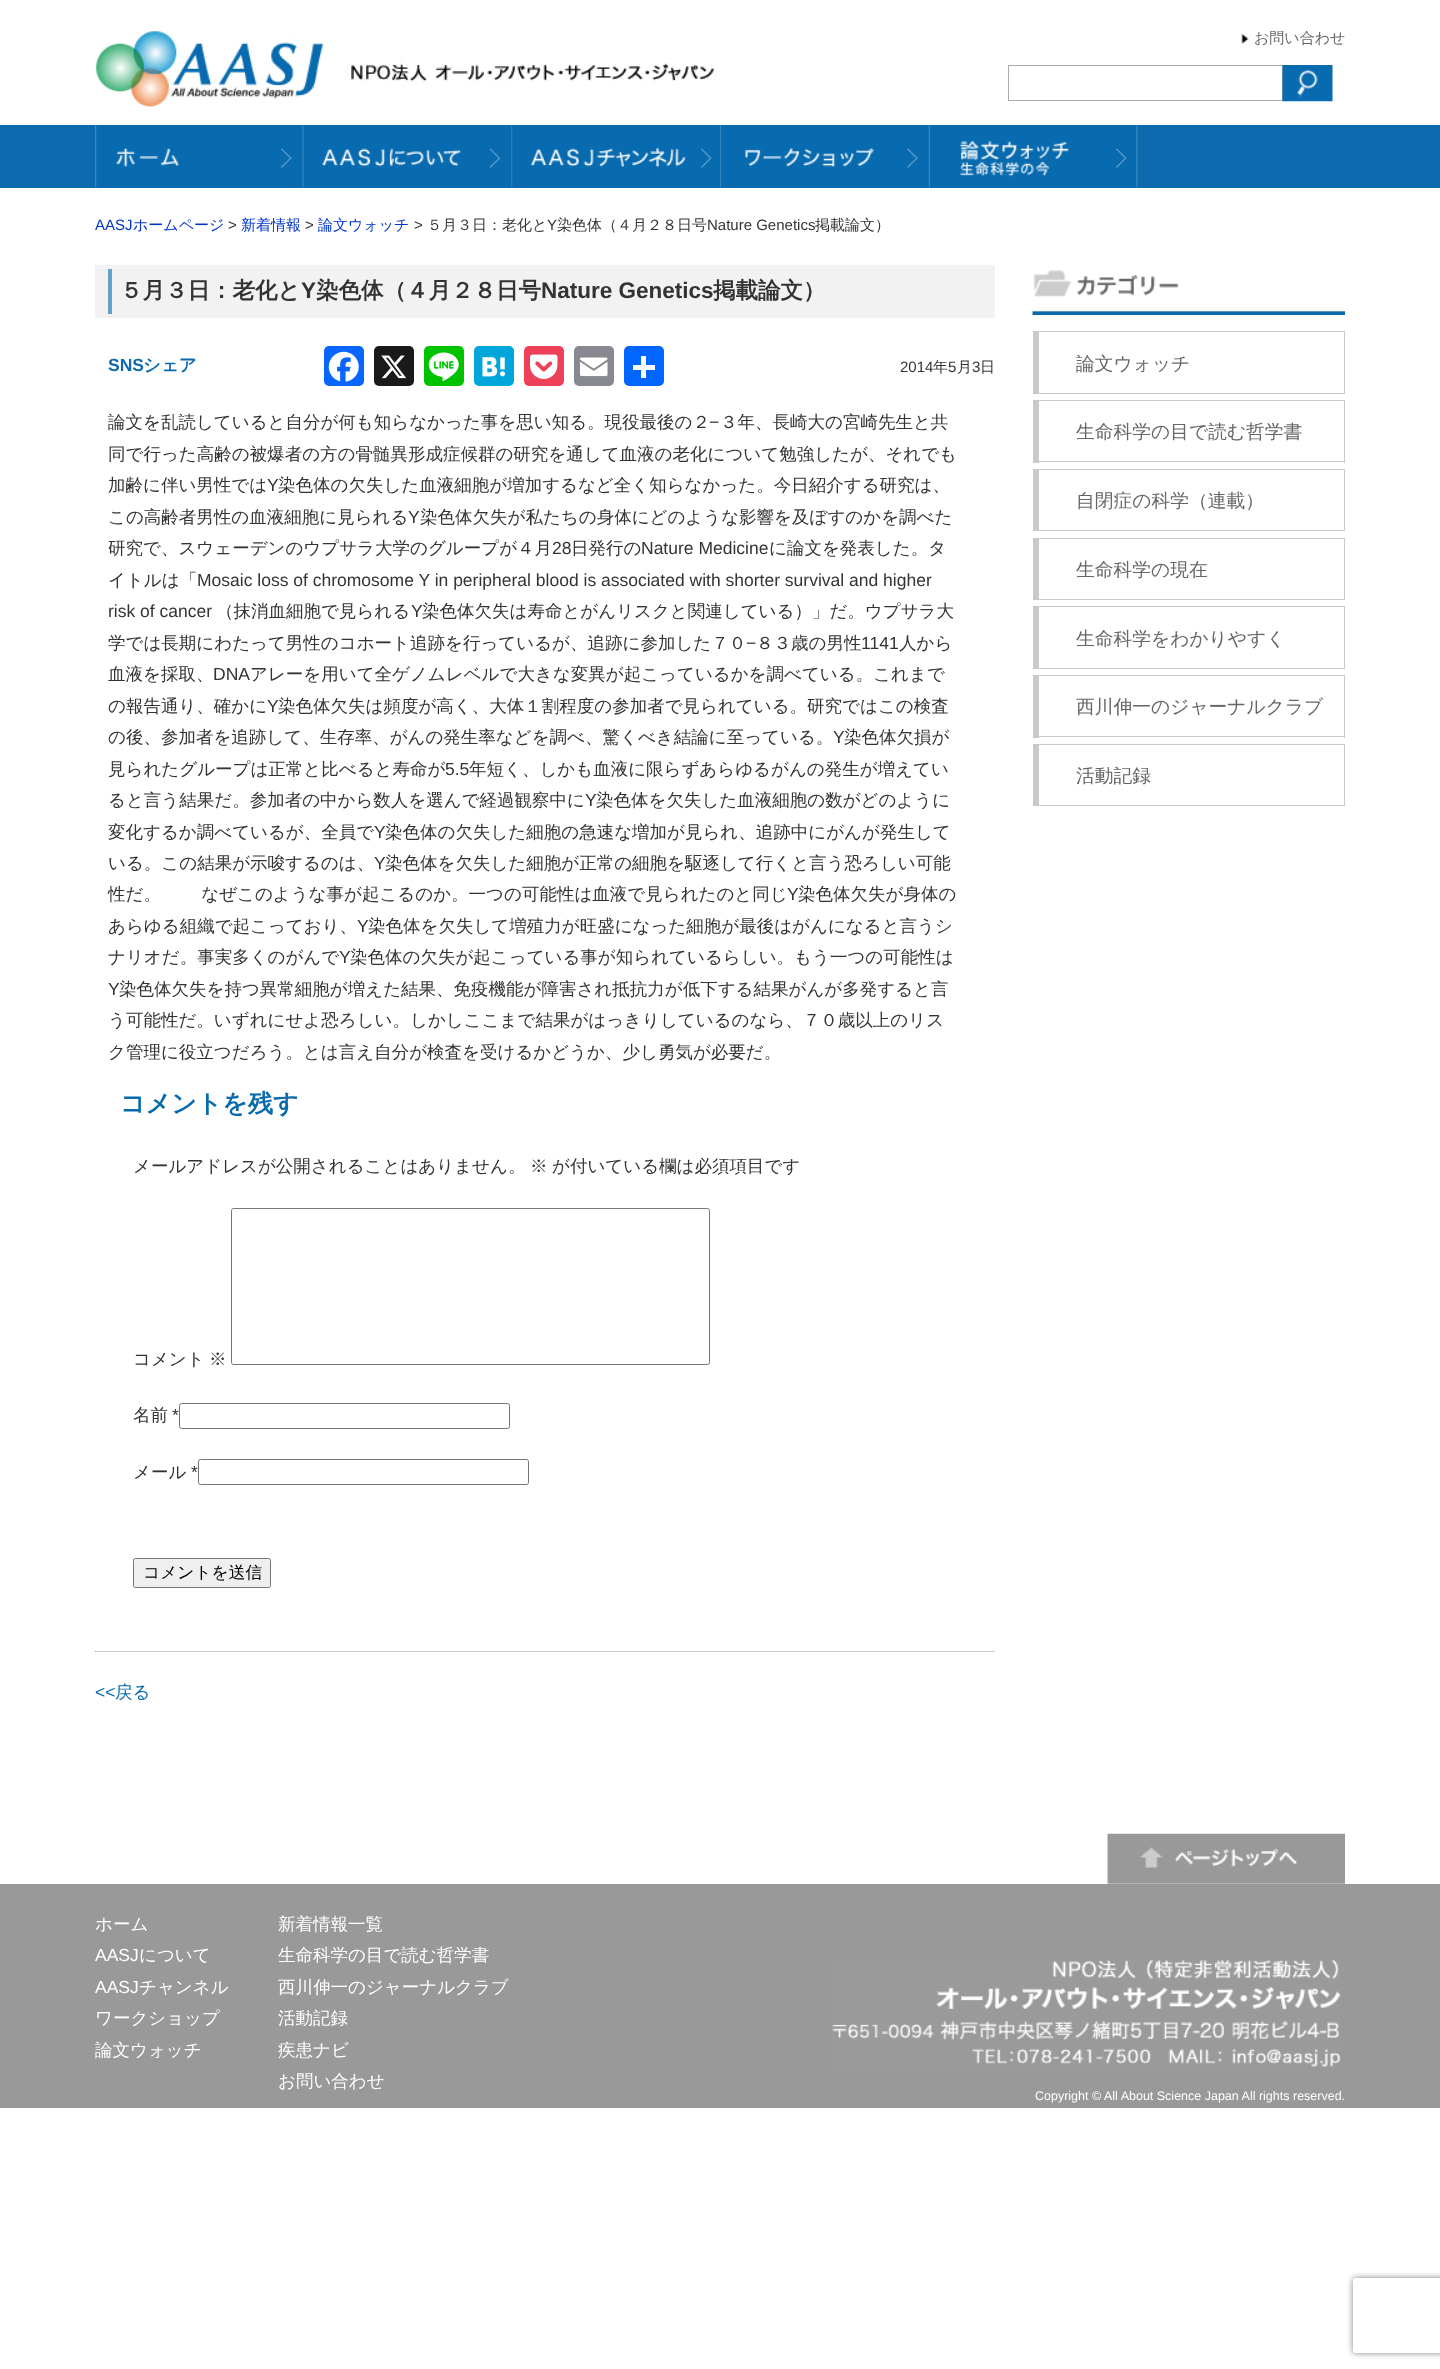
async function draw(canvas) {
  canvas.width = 1440;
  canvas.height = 2369;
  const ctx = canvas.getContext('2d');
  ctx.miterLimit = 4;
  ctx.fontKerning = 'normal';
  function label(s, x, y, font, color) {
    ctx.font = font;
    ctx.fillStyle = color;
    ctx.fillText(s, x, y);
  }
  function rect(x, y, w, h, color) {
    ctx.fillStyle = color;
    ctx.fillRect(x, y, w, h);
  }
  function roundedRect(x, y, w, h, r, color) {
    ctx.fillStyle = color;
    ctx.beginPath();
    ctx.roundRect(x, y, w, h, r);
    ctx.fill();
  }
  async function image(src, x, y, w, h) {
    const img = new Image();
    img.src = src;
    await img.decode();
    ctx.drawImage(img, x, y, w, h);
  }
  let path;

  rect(0, 0, 1440, 2369, '#fff');
  await image('assets/img1.png', 96, 31, 618, 76);
  await image('assets/img2.png', 1241, 33, 8, 11);
  label('お問い合わせ', 1254, 43, '500 15px WenQuanYi Zen Hei', '#666');
  ctx.strokeStyle = '#aaa';
  ctx.strokeRect(1008.5, 65.5, 274, 35);
  await image('assets/img3.png', 1282, 65, 51, 37);
  rect(0, 125, 1440, 63, '#0d6aae');
  await image('assets/img4.png', 95, 125, 209, 63);
  await image('assets/img5.png', 303, 125, 210, 63);
  await image('assets/img6.png', 512, 125, 210, 63);
  await image('assets/img7.png', 721, 125, 209, 63);
  await image('assets/img8.png', 930, 125, 208, 63);
  label('AASJ', 95, 230, '15px Liberation Sans', '#03c');
  label('ホームページ', 133, 230, '500 15px WenQuanYi Zen Hei', '#03c');
  label('>', 228, 230, '15px Liberation Sans', '#333');
  label('新着情報', 241, 230, '500 15px WenQuanYi Zen Hei', '#03c');
  label('>', 305, 230, '15px Liberation Sans', '#333');
  label('論文ウォッチ', 318, 230, '500 15px WenQuanYi Zen Hei', '#03c');
  label('>', 414, 230, '15px Liberation Sans', '#333');
  label('５月３日：老化と', 427, 230, '500 15px WenQuanYi Zen Hei', '#333');
  label('Y', 547, 230, '15px Liberation Sans', '#333');
  label('染色体（４月２８日号', 557, 230, '500 15px WenQuanYi Zen Hei', '#333');
  label('Nature Genetics', 707, 230, '15px Liberation Sans', '#333');
  label('掲載論文）', 815, 230, '500 15px WenQuanYi Zen Hei', '#333');
  rect(95, 265, 900, 53, '#f2f2f2');
  rect(108, 269, 4, 45, '#65a0c9');
  label('５月３日：老化と', 120, 298, 'bold 22.5px WenQuanYi Zen Hei', '#333');
  label('Y', 301, 298, 'bold 22.5px Liberation Sans', '#333');
  label('染色体（４月２８日号', 316, 298, 'bold 22.5px WenQuanYi Zen Hei', '#333');
  label('Nature Genetics', 541, 298, 'bold 22.5px Liberation Sans', '#333');
  label('掲載論文）', 713, 298, 'bold 22.5px WenQuanYi Zen Hei', '#333');
  label('SNS', 108, 371, 'bold 17.5px Liberation Sans', '#0d6aae');
  label('シェア', 143, 371, 'bold 17.5px WenQuanYi Zen Hei', '#0d6aae');
  roundedRect(324, 346, 40, 40, 5, '#0866ff');
  await image('assets/img9.png', 328, 351, 31, 31);
  roundedRect(374, 346, 40, 40, 5, '#1a1a1a');
  await image('assets/img10.png', 381, 355, 26, 24);
  roundedRect(424, 346, 40, 40, 5, '#00c300');
  await image('assets/img11.png', 428, 352, 31, 29);
  roundedRect(474, 346, 40, 40, 5, '#00a6db');
  await image('assets/img12.png', 482, 357, 23, 20);
  roundedRect(524, 346, 40, 40, 5, '#ee4056');
  await image('assets/img13.png', 530, 354, 28, 25);
  roundedRect(574, 346, 40, 40, 5, '#888990');
  await image('assets/img14.png', 580, 357, 28, 20);
  roundedRect(624, 346, 40, 40, 5, '#0166ff');
  rect(641, 356, 5, 22, '#fff');
  rect(633, 365, 22, 5, '#fff');
  label('論文を乱読していると自分が何も知らなかった事を思い知る。現役最後の２', 108, 428, '500 17.5px WenQuanYi Zen Hei', '#333');
  label('−', 709, 428, '17.5px Liberation Sans', '#333');
  label('３年、長崎大の宮崎先生と共', 720, 428, '500 17.5px WenQuanYi Zen Hei', '#333');
  label('同で行った高齢の被爆者の方の骨髄異形成症候群の研究を通して血液の老化について勉強したが、それでも', 108, 460, '500 17.5px WenQuanYi Zen Hei', '#333');
  label('加齢に伴い男性では', 108, 491, '500 17.5px WenQuanYi Zen Hei', '#333');
  label('Y', 267, 491, '17.5px Liberation Sans', '#333');
  label('染色体の欠失した血液細胞が増加するなど全く知らなかった。今日紹介する研究は、', 278, 491, '500 17.5px WenQuanYi Zen Hei', '#333');
  label('この高齢者男性の血液細胞に見られる', 108, 523, '500 17.5px WenQuanYi Zen Hei', '#333');
  label('Y', 408, 523, '17.5px Liberation Sans', '#333');
  label('染色体欠失が私たちの身体にどのような影響を及ぼすのかを調べた', 420, 523, '500 17.5px WenQuanYi Zen Hei', '#333');
  label('研究で、スウェーデンのウプサラ大学のグループが４月', 108, 554, '500 17.5px WenQuanYi Zen Hei', '#333');
  label('28', 552, 554, '17.5px Liberation Sans', '#333');
  label('日発行の', 571, 554, '500 17.5px WenQuanYi Zen Hei', '#333');
  label('Nature Medicine', 641, 554, '17.5px Liberation Sans', '#333');
  label('に論文を発表した。タ', 769, 554, '500 17.5px WenQuanYi Zen Hei', '#333');
  label('イトルは「', 108, 586, '500 17.5px WenQuanYi Zen Hei', '#333');
  label('Mosaic loss of chromosome Y in peripheral blood is associated with shorter survival and higher', 197, 586, '17.5px Liberation Sans', '#333');
  label('risk of cancer', 108, 617, '17.5px Liberation Sans', '#333');
  label('（抹消血細胞で見られる', 216, 617, '500 17.5px WenQuanYi Zen Hei', '#333');
  label('Y', 411, 617, '17.5px Liberation Sans', '#333');
  label('染色体欠失は寿命とがんリスクと関連している）」だ。ウプサラ大', 422, 617, '500 17.5px WenQuanYi Zen Hei', '#333');
  label('学では長期にわたって男性のコホート追跡を行っているが、追跡に参加した７０', 108, 649, '500 17.5px WenQuanYi Zen Hei', '#333');
  label('−', 746, 649, '17.5px Liberation Sans', '#333');
  label('８３歳の男性', 756, 649, '500 17.5px WenQuanYi Zen Hei', '#333');
  label('1141', 861, 649, '17.5px Liberation Sans', '#333');
  label('人から', 899, 649, '500 17.5px WenQuanYi Zen Hei', '#333');
  label('血液を採取、', 108, 680, '500 17.5px WenQuanYi Zen Hei', '#333');
  label('DNA', 213, 680, '17.5px Liberation Sans', '#333');
  label('アレーを用いて全ゲノムレベルで大きな変異が起こっているかを調べている。これまで', 250, 680, '500 17.5px WenQuanYi Zen Hei', '#333');
  label('の報告通り、確かに', 108, 712, '500 17.5px WenQuanYi Zen Hei', '#333');
  label('Y', 267, 712, '17.5px Liberation Sans', '#333');
  label('染色体欠失は頻度が高く、大体１割程度の参加者で見られている。研究ではこの検査', 278, 712, '500 17.5px WenQuanYi Zen Hei', '#333');
  label('の後、参加者を追跡して、生存率、がんの発生率などを調べ、驚くべき結論に至っている。', 108, 743, '500 17.5px WenQuanYi Zen Hei', '#333');
  label('Y', 833, 743, '17.5px Liberation Sans', '#333');
  label('染色体欠損が', 844, 743, '500 17.5px WenQuanYi Zen Hei', '#333');
  label('見られたグループは正常と比べると寿命が', 108, 775, '500 17.5px WenQuanYi Zen Hei', '#333');
  label('5.5', 445, 775, '17.5px Liberation Sans', '#333');
  label('年短く、しかも血液に限らずあらゆるがんの発生が増えてい', 469, 775, '500 17.5px WenQuanYi Zen Hei', '#333');
  label('ると言う結果だ。参加者の中から数人を選んで経過観察中に', 108, 806, '500 17.5px WenQuanYi Zen Hei', '#333');
  label('Y', 585, 806, '17.5px Liberation Sans', '#333');
  label('染色体を欠失した血液細胞の数がどのように', 596, 806, '500 17.5px WenQuanYi Zen Hei', '#333');
  label('変化するか調べているが、全員で', 108, 838, '500 17.5px WenQuanYi Zen Hei', '#333');
  label('Y', 374, 838, '17.5px Liberation Sans', '#333');
  label('染色体の欠失した細胞の急速な増加が見られ、追跡中にがんが発生して', 385, 838, '500 17.5px WenQuanYi Zen Hei', '#333');
  label('いる。この結果が示唆するのは、', 108, 869, '500 17.5px WenQuanYi Zen Hei', '#333');
  label('Y', 374, 869, '17.5px Liberation Sans', '#333');
  label('染色体を欠失した細胞が正常の細胞を駆逐して行くと言う恐ろしい可能', 385, 869, '500 17.5px WenQuanYi Zen Hei', '#333');
  label('性だ。 　　なぜこのような事が起こるのか。一つの可能性は血液で見られたのと同じ', 108, 900, '500 17.5px WenQuanYi Zen Hei', '#333');
  label('Y', 787, 900, '17.5px Liberation Sans', '#333');
  label('染色体欠失が身体の', 798, 900, '500 17.5px WenQuanYi Zen Hei', '#333');
  label('あらゆる組織で起こっており、', 108, 932, '500 17.5px WenQuanYi Zen Hei', '#333');
  label('Y', 357, 932, '17.5px Liberation Sans', '#333');
  label('染色体を欠失して増殖力が旺盛になった細胞が最後はがんになると言うシ', 368, 932, '500 17.5px WenQuanYi Zen Hei', '#333');
  label('ナリオだ。事実多くのがんで', 108, 963, '500 17.5px WenQuanYi Zen Hei', '#333');
  label('Y', 339, 963, '17.5px Liberation Sans', '#333');
  label('染色体の欠失が起こっている事が知られているらしい。もう一つの可能性は', 350, 963, '500 17.5px WenQuanYi Zen Hei', '#333');
  label('Y', 108, 995, '17.5px Liberation Sans', '#333');
  label('染色体欠失を持つ異常細胞が増えた結果、免疫機能が障害され抵抗力が低下する結果がんが多発すると言', 119, 995, '500 17.5px WenQuanYi Zen Hei', '#333');
  label('う可能性だ。いずれにせよ恐ろしい。しかしここまで結果がはっきりしているのなら、７０歳以上のリス', 108, 1026, '500 17.5px WenQuanYi Zen Hei', '#333');
  label('ク管理に役立つだろう。とは言え自分が検査を受けるかどうか、少し勇気が必要だ。', 108, 1058, '500 17.5px WenQuanYi Zen Hei', '#333');
  label('コメントを残す', 120, 1112, 'bold 25px WenQuanYi Zen Hei', '#066aac');
  label('メールアドレスが公開されることはありません。', 133, 1172, '500 17.5px WenQuanYi Zen Hei', '#333');
  label('※', 530, 1172, '500 17.5px WenQuanYi Zen Hei', '#333');
  label('が付いている欄は必須項目です', 552, 1172, '500 17.5px WenQuanYi Zen Hei', '#333');
  label('コメント', 133, 1365, '500 17.5px WenQuanYi Zen Hei', '#333');
  label('※', 209, 1365, '500 17.5px WenQuanYi Zen Hei', '#333');
  ctx.beginPath();
  ctx.roundRect(231.5, 1208.5, 478, 156, 2);
  ctx.strokeStyle = '#767676';
  ctx.stroke();
  label('名前', 133, 1421, '500 17.5px WenQuanYi Zen Hei', '#333');
  label('*', 172, 1421, '17.5px Liberation Sans', '#333');
  ctx.beginPath();
  ctx.roundRect(179.5, 1403.5, 330, 25, 2);
  ctx.stroke();
  label('メール', 133, 1478, '500 17.5px WenQuanYi Zen Hei', '#333');
  label('*', 191, 1478, '17.5px Liberation Sans', '#333');
  ctx.beginPath();
  ctx.roundRect(198.5, 1459.5, 330, 25, 2);
  ctx.stroke();
  ctx.fillStyle = '#efefef';
  ctx.beginPath();
  ctx.roundRect(133.5, 1558.5, 137, 29, 2);
  ctx.fill();
  ctx.stroke();
  label('コメントを送信', 143, 1578, '500 16.75px WenQuanYi Zen Hei', '#000');
  label('2014', 900, 372, '15px Liberation Sans', '#333');
  label('年', 933, 372, '500 15px WenQuanYi Zen Hei', '#333');
  label('5', 948, 372, '15px Liberation Sans', '#333');
  label('月', 957, 372, '500 15px WenQuanYi Zen Hei', '#333');
  label('3', 972, 372, '15px Liberation Sans', '#333');
  label('日', 980, 372, '500 15px WenQuanYi Zen Hei', '#333');
  rect(95, 1651, 900, 1, '#ccc');
  rect(95, 1651, 1, 1, '#9f9f9f');
  label('<<', 95, 1698, '17.5px Liberation Sans', '#066aac');
  label('戻る', 115, 1698, '500 17.5px WenQuanYi Zen Hei', '#066aac');
  await image('assets/img15.png', 1032, 270, 313, 45);
  rect(1033, 331, 312, 1, '#c9c9c9');
  rect(1344, 331, 1, 63, '#c9c9c9');
  rect(1033, 393, 312, 1, '#c9c9c9');
  rect(1033, 331, 6, 63, '#c9c9c9');
  label('論文ウォッチ', 1076, 370, '500 18.75px WenQuanYi Zen Hei', '#666');
  rect(1033, 400, 312, 1, '#c9c9c9');
  rect(1344, 400, 1, 63, '#c9c9c9');
  rect(1033, 461, 312, 1, '#c9c9c9');
  rect(1033, 400, 6, 63, '#c9c9c9');
  label('生命科学の目で読む哲学書', 1076, 438, '500 18.75px WenQuanYi Zen Hei', '#666');
  rect(1033, 469, 312, 1, '#c9c9c9');
  rect(1344, 469, 1, 62, '#c9c9c9');
  rect(1033, 530, 312, 1, '#c9c9c9');
  rect(1033, 469, 6, 62, '#c9c9c9');
  label('自閉症の科学（連載）', 1076, 507, '500 18.75px WenQuanYi Zen Hei', '#666');
  rect(1033, 538, 312, 1, '#c9c9c9');
  rect(1344, 538, 1, 62, '#c9c9c9');
  rect(1033, 599, 312, 1, '#c9c9c9');
  rect(1033, 538, 6, 62, '#c9c9c9');
  label('生命科学の現在', 1076, 576, '500 18.75px WenQuanYi Zen Hei', '#666');
  rect(1033, 606, 312, 1, '#c9c9c9');
  rect(1344, 606, 1, 63, '#c9c9c9');
  rect(1033, 668, 312, 1, '#c9c9c9');
  rect(1033, 606, 6, 63, '#c9c9c9');
  label('生命科学をわかりやすく', 1076, 645, '500 18.75px WenQuanYi Zen Hei', '#666');
  rect(1033, 675, 312, 1, '#c9c9c9');
  rect(1344, 675, 1, 63, '#c9c9c9');
  rect(1033, 736, 312, 1, '#c9c9c9');
  rect(1033, 675, 6, 63, '#c9c9c9');
  label('西川伸一のジャーナルクラブ', 1076, 713, '500 18.75px WenQuanYi Zen Hei', '#666');
  rect(1033, 744, 312, 1, '#c9c9c9');
  rect(1344, 744, 1, 62, '#c9c9c9');
  rect(1033, 805, 312, 1, '#c9c9c9');
  rect(1033, 744, 6, 62, '#c9c9c9');
  label('活動記録', 1076, 782, '500 18.75px WenQuanYi Zen Hei', '#666');
  await image('assets/img16.png', 1107, 1833, 238, 51);
  rect(0, 1884, 1440, 224, '#999');
  label('ホーム', 95, 1930, '500 17.5px WenQuanYi Zen Hei', '#fff');
  label('AASJ', 95, 1961, '17.5px Liberation Sans', '#fff');
  label('について', 139, 1961, '500 17.5px WenQuanYi Zen Hei', '#fff');
  label('AASJ', 95, 1993, '17.5px Liberation Sans', '#fff');
  label('チャンネル', 139, 1993, '500 17.5px WenQuanYi Zen Hei', '#fff');
  label('ワークショップ', 95, 2024, '500 17.5px WenQuanYi Zen Hei', '#fff');
  label('論文ウォッチ', 95, 2056, '500 17.5px WenQuanYi Zen Hei', '#fff');
  label('新着情報一覧', 278, 1930, '500 17.5px WenQuanYi Zen Hei', '#fff');
  label('生命科学の目で読む哲学書', 278, 1961, '500 17.5px WenQuanYi Zen Hei', '#fff');
  label('西川伸一のジャーナルクラブ', 278, 1993, '500 17.5px WenQuanYi Zen Hei', '#fff');
  label('活動記録', 278, 2024, '500 17.5px WenQuanYi Zen Hei', '#fff');
  label('疾患ナビ', 278, 2056, '500 17.5px WenQuanYi Zen Hei', '#fff');
  label('お問い合わせ', 278, 2087, '500 17.5px WenQuanYi Zen Hei', '#fff');
  await image('assets/img17.png', 832, 1960, 509, 107);
  label('Copyright © All About Science Japan All rights reserved.', 1035, 2100, '12.5px Liberation Sans', '#fff');
  ctx.save();
  path = new Path2D('M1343 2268H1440V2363H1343ZM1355.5 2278H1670.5C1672 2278 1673 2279 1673 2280.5V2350.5C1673 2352 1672 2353 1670.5 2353H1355.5C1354 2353 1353 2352 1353 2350.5V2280.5C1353 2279 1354 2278 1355.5 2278Z');
  ctx.clip(path, 'evenodd');
  ctx.fillStyle = '#808080';
  ctx.filter = 'blur(3px)';
  ctx.beginPath();
  ctx.roundRect(1353, 2278, 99, 75, 2.5);
  ctx.fill();
  ctx.filter = 'none';
  ctx.restore();
}

draw(document.querySelector('canvas'));
